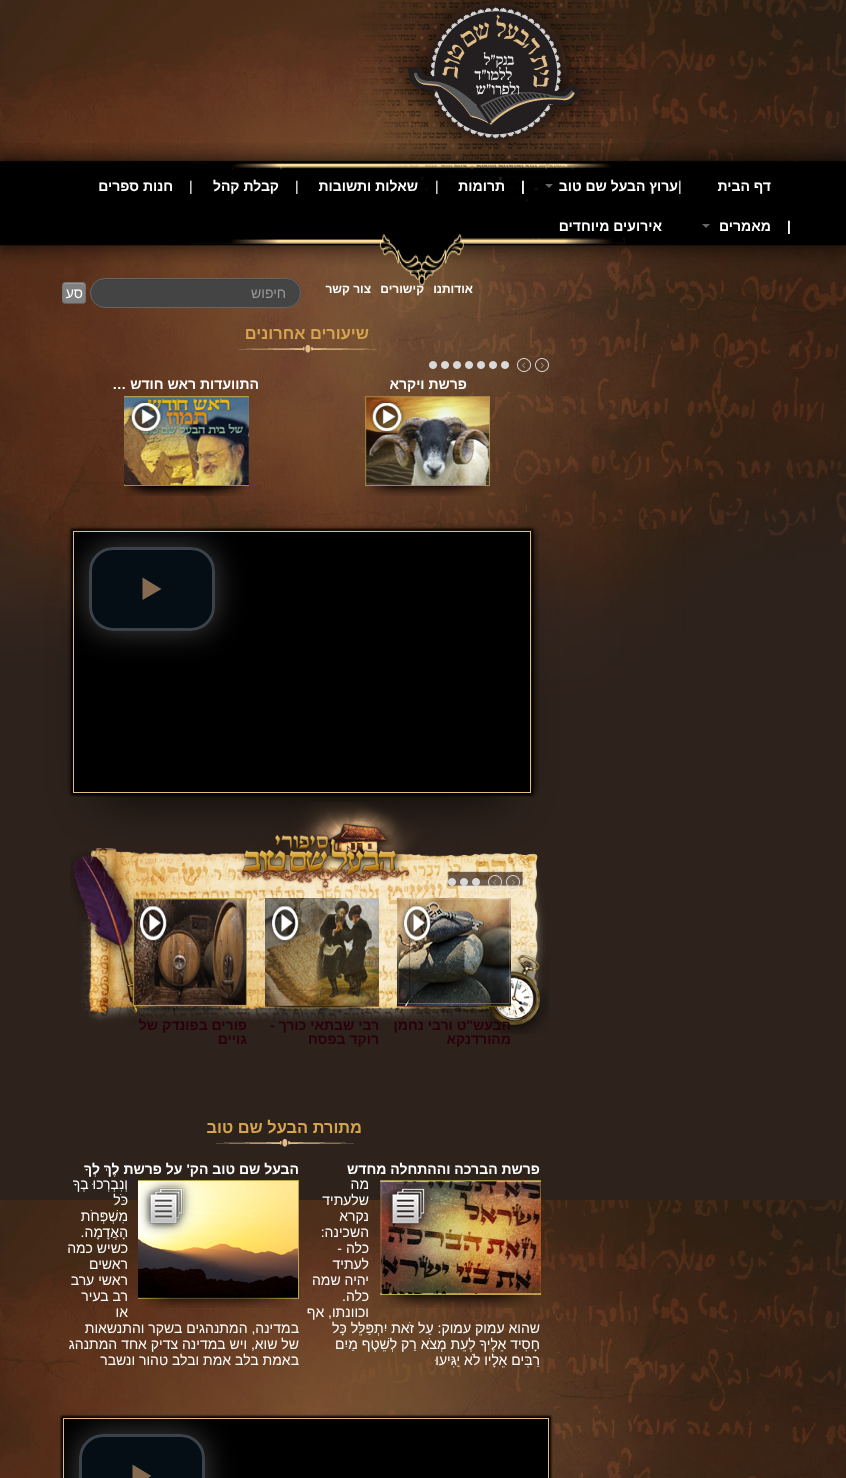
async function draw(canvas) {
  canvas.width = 846;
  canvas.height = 1478;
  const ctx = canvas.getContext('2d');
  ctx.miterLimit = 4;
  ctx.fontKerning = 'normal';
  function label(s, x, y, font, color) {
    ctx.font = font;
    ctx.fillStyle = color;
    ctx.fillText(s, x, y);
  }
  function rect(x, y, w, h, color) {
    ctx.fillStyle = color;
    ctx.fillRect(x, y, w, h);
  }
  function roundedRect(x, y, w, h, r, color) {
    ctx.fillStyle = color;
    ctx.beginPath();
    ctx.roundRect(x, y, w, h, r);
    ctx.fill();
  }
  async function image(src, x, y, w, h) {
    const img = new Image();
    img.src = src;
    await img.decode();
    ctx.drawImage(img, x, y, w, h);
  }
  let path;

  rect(0, 0, 846, 1478, '#fff');
  await image('assets/img1.png', 0, 0, 846, 1478);
  await image('assets/img3.png', 0, 143, 846, 144);
  await image('assets/img2.png', 356, 0, 281, 202);
  ctx.direction = 'rtl';
  label('ערוץ הבעל שם טוב', 678, 191, 'bold 14px Liberation Sans', '#fff');
  ctx.fillStyle = '#666';
  path = new Path2D('M545 184H553L549 188Z');
  ctx.fill(path);
  ctx.direction = 'ltr';
  label('|', 521, 191, 'bold 14px Liberation Sans', '#fff');
  label('|', 435, 191, '14px Liberation Sans', '#fff');
  ctx.direction = 'rtl';
  label('שאלות ותשובות', 418, 191, 'bold 14px Liberation Sans', '#fff');
  ctx.direction = 'ltr';
  label('|', 295, 191, '14px Liberation Sans', '#fff');
  ctx.direction = 'rtl';
  label('קבלת קהל', 279, 191, 'bold 14px Liberation Sans', '#fff');
  ctx.direction = 'ltr';
  label('|', 189, 191, '14px Liberation Sans', '#fff');
  ctx.direction = 'rtl';
  label('חנות ספרים', 173, 191, 'bold 14px Liberation Sans', '#fff');
  label('דף הבית', 771, 191, 'bold 14px Liberation Sans', '#fff');
  ctx.direction = 'ltr';
  label('|', 678, 191, '14px Liberation Sans', '#fff');
  ctx.direction = 'rtl';
  label('אירועים מיוחדים', 662, 231, 'bold 14px Liberation Sans', '#fff');
  label('תרומות', 505, 191, 'bold 14px Liberation Sans', '#fff');
  ctx.direction = 'ltr';
  label('|', 787, 231, 'bold 14px Liberation Sans', '#fff');
  ctx.direction = 'rtl';
  label('מאמרים', 771, 231, 'bold 14px Liberation Sans', '#fff');
  ctx.fillStyle = '#666';
  path = new Path2D('M702 224H710L706 228Z');
  ctx.fill(path);
  label('אודותנו', 473, 293, 'bold 12px Liberation Sans', '#fff');
  label('קישורים', 424, 293, 'bold 12px Liberation Sans', '#fff');
  label('צור קשר', 371, 293, 'bold 12px Liberation Sans', '#fff');
  roundedRect(90, 278, 211, 30, 15, '#444');
  ctx.save();
  ctx.beginPath();
  ctx.rect(55, 278, 736, 30);
  ctx.clip();
  ctx.fillStyle = '#3f3f3f';
  path = new Path2D('M105 280H286C294 280 300 286 300 293C301 272 265 279 256 279H135C126 279 90 272 91 293C91 286 97 280 105 280Z');
  ctx.fill(path);
  ctx.restore();
  ctx.beginPath();
  ctx.roundRect(90.5, 278.5, 210, 29, 14.5);
  ctx.strokeStyle = '#666';
  ctx.stroke();
  label('חיפוש', 286, 298, '14px Liberation Sans', '#999');
  roundedRect(62, 282, 24, 22, 4, '#808080');
  ctx.fillStyle = '#999';
  path = new Path2D('M66 284H79C83.5 284 85 285 85 287.5V286C85 284.5 83.5 283 82 283H66C64.5 283 63 284.5 63 286C63.5 285 64.5 284 66 284ZM63.5 301.5C63 300 63 297.5 63 294C63 296 62.5 300 63.5 301.5Z');
  ctx.fill(path, 'evenodd');
  path = new Path2D('M84.5 302.5C84 303 83 303.5 82 303.5H66C65 303.5 64 303 63.5 302.5');
  ctx.strokeStyle = '#00000040';
  ctx.stroke(path);
  path = new Path2D('M63.5 302.5C61.5 300.5 62.5 295.5 62.5 293C62.5 281 62 282.5 74 282.5C86 282.5 85.5 281 85.5 293C85.5 295.5 86.5 300.5 84.5 302.5');
  ctx.strokeStyle = '#0000001a';
  ctx.stroke(path);
  label('סע', 83, 298, '14px Liberation Sans', '#fff');
  await image('assets/img4.png', 238, 345, 139, 8);
  label('שיעורים אחרונים', 369, 339, 'bold 16.4px Liberation Sans', '#d4a44f');
  await image('assets/img5.png', 535, 358, 14, 14);
  await image('assets/img6.png', 517, 358, 14, 14);
  await image('assets/img7.png', 501, 361, 8, 8);
  await image('assets/img8.png', 489, 361, 8, 8);
  await image('assets/img9.png', 477, 361, 8, 8);
  await image('assets/img10.png', 465, 361, 8, 8);
  await image('assets/img11.png', 453, 361, 8, 8);
  await image('assets/img12.png', 441, 361, 8, 8);
  await image('assets/img13.png', 429, 361, 8, 8);
  label('פרשת ויקרא', 467, 389, 'bold 14px Liberation Sans', '#fff');
  await image('assets/img14.png', 365, 396, 125, 100);
  label('התוועדות ראש חודש …', 259, 389, 'bold 14px Liberation Sans', '#fff');
  await image('assets/img15.png', 124, 396, 125, 100);
  await image('assets/img16.png', 67, 525, 472, 272);
  await image('assets/img17.png', 70, 802, 479, 232);
  ctx.fillStyle = '#000';
  ctx.filter = 'blur(25px)';
  ctx.beginPath();
  ctx.rect(104, 593, 396, 200);
  ctx.fill();
  ctx.filter = 'none';
  ctx.filter = 'blur(1px)';
  ctx.beginPath();
  ctx.rect(71, 529, 462, 266);
  ctx.fill();
  ctx.filter = 'none';
  ctx.strokeStyle = '#e1bc87';
  ctx.strokeRect(73.5, 531.5, 457, 261);
  ctx.save();
  path = new Path2D('M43 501H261V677H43ZM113 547H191C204.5 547 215 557.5 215 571V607C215 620.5 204.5 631 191 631H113C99.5 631 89 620.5 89 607V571C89 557.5 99.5 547 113 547Z');
  ctx.clip(path, 'evenodd');
  ctx.fillStyle = '#ffffff40';
  ctx.filter = 'blur(15px)';
  ctx.beginPath();
  ctx.roundRect(89, 547, 126, 84, 24);
  ctx.fill();
  ctx.filter = 'none';
  ctx.restore();
  ctx.fillStyle = '#07141eb3';
  ctx.beginPath();
  ctx.roundRect(90.5, 548.5, 123, 81, 22.5);
  ctx.fill();
  ctx.strokeStyle = '#3b4249';
  ctx.lineWidth = 3;
  ctx.stroke();
  ctx.fillStyle = '#876b51';
  path = new Path2D('M142.5 577.5L161.5 589L142.5 600Z');
  ctx.fill(path);
  await image('assets/img18.png', 506, 875, 14, 14);
  await image('assets/img19.png', 488, 875, 14, 14);
  await image('assets/img20.png', 472, 878, 8, 8);
  await image('assets/img21.png', 460, 878, 8, 8);
  await image('assets/img22.png', 448, 878, 8, 8);
  await image('assets/img23.png', 397, 898, 114, 119);
  label('הבעש"ט ורבי נחמן', 511, 1030, 'bold 14px Liberation Sans', '#2a000c');
  label('מהורדנקא', 511, 1044, 'bold 14px Liberation Sans', '#2a000c');
  await image('assets/img24.png', 265, 898, 114, 120);
  label('רבי שבתאי כורך -', 379, 1030, 'bold 14px Liberation Sans', '#2a000c');
  label('רוקד בפסח', 379, 1044, 'bold 14px Liberation Sans', '#2a000c');
  await image('assets/img25.png', 133, 898, 114, 120);
  label('פורים בפונדק של', 247, 1030, 'bold 14px Liberation Sans', '#2a000c');
  label('גויים', 247, 1044, 'bold 14px Liberation Sans', '#2a000c');
  await image('assets/img26.png', 215, 1139, 139, 8);
  label('מתורת הבעל שם טוב', 362, 1133, 'bold 16.4px Liberation Sans', '#d4a44f');
  label('פרשת הברכה וההתחלה מחדש', 540, 1174, 'bold 14px Liberation Sans', '#fff');
  label('מה', 369, 1189, '14px Liberation Sans', '#fff');
  label('שלעתיד', 369, 1205, '14px Liberation Sans', '#fff');
  label('נקרא', 369, 1221, '14px Liberation Sans', '#fff');
  label('השכינה:', 369, 1237, '14px Liberation Sans', '#fff');
  label('כלה -', 369, 1253, '14px Liberation Sans', '#fff');
  label('לעתיד', 369, 1269, '14px Liberation Sans', '#fff');
  label('יהיה שמה', 369, 1285, '14px Liberation Sans', '#fff');
  label('כלה.', 369, 1301, '14px Liberation Sans', '#fff');
  label('וכוונתו, אף', 369, 1317, '14px Liberation Sans', '#fff');
  label('שהוא עמוק עמוק: עַל זֹאת יִתְפַּלֵּל כָּל', 540, 1333, '14px Liberation Sans', '#fff');
  label('חָסִיד אֵלֶיךָ לְעֵת מְצֹא רַק לְשֵׁטֶף מַיִם', 540, 1349, '14px Liberation Sans', '#fff');
  label('רַבִּים אֵלָיו לֹא יַגִּיעוּ', 540, 1365, '14px Liberation Sans', '#fff');
  await image('assets/img27.png', 380, 1180, 161, 128);
  label('הבעל שם טוב הק\' על פרשת לֶךְ לְךָ', 299, 1174, 'bold 14px Liberation Sans', '#fff');
  label('וְנִבְרְכוּ בְךָ', 128, 1189, '14px Liberation Sans', '#fff');
  label('כֹּל', 128, 1205, '14px Liberation Sans', '#fff');
  label('מִשְׁפְּחֹת', 128, 1221, '14px Liberation Sans', '#fff');
  label('הָאֲדָמָה.', 128, 1237, '14px Liberation Sans', '#fff');
  label('כשיש כמה', 128, 1253, '14px Liberation Sans', '#fff');
  label('ראשים', 128, 1269, '14px Liberation Sans', '#fff');
  label('ראשי ערב', 128, 1285, '14px Liberation Sans', '#fff');
  label('רב בעיר', 128, 1301, '14px Liberation Sans', '#fff');
  label('או', 128, 1317, '14px Liberation Sans', '#fff');
  label('במדינה, המתנהגים בשקר והתנשאות', 299, 1333, '14px Liberation Sans', '#fff');
  label('של שוא, ויש במדינה צדיק אחד המתנהג', 299, 1349, '14px Liberation Sans', '#fff');
  label('באמת בלב אמת ובלב טהור ונשבר', 299, 1365, '14px Liberation Sans', '#fff');
  await image('assets/img28.png', 138, 1180, 161, 128);
  ctx.fillStyle = '#000';
  ctx.filter = 'blur(25px)';
  ctx.beginPath();
  ctx.rect(94, 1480, 424, 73);
  ctx.fill();
  ctx.filter = 'none';
  ctx.filter = 'blur(1px)';
  ctx.beginPath();
  ctx.rect(61, 1416, 490, 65);
  ctx.fill();
  ctx.filter = 'none';
  ctx.strokeStyle = '#e1bc87';
  ctx.lineWidth = 1;
  ctx.strokeRect(63.5, 1418.5, 485, 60);
  ctx.save();
  path = new Path2D('M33 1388H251V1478H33ZM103 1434H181C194.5 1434 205 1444.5 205 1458V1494C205 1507.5 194.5 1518 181 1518H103C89.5 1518 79 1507.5 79 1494V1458C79 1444.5 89.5 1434 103 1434Z');
  ctx.clip(path, 'evenodd');
  ctx.fillStyle = '#ffffff40';
  ctx.filter = 'blur(15px)';
  ctx.beginPath();
  ctx.roundRect(79, 1434, 126, 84, 24);
  ctx.fill();
  ctx.filter = 'none';
  ctx.restore();
  ctx.fillStyle = '#07141eb3';
  ctx.beginPath();
  ctx.roundRect(80.5, 1435.5, 123, 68, 22.5);
  ctx.fill();
  ctx.strokeStyle = '#3b4249';
  ctx.lineWidth = 3;
  ctx.stroke();
  ctx.fillStyle = '#876b51';
  path = new Path2D('M132.5 1464.5L151.5 1476L132.5 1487Z');
  ctx.fill(path);
}

draw(document.querySelector('canvas'));
